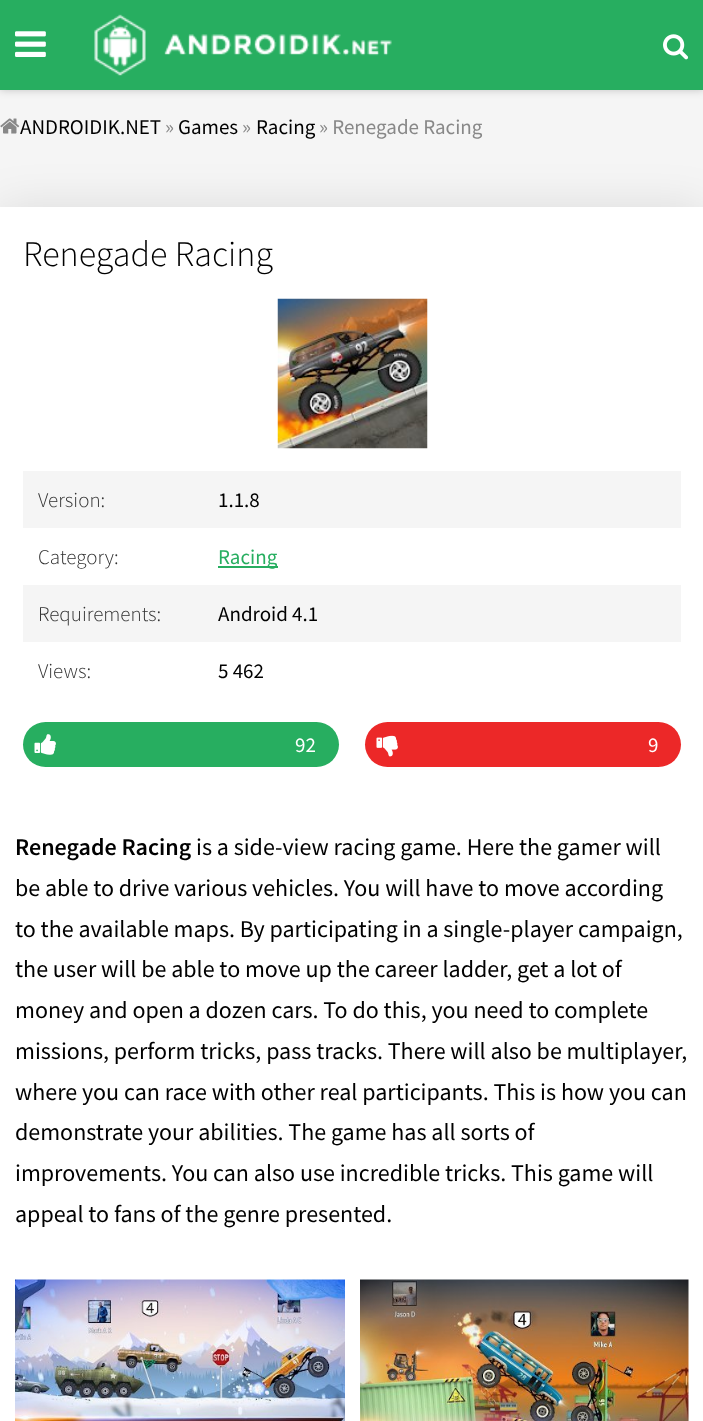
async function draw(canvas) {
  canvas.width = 703;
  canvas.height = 1421;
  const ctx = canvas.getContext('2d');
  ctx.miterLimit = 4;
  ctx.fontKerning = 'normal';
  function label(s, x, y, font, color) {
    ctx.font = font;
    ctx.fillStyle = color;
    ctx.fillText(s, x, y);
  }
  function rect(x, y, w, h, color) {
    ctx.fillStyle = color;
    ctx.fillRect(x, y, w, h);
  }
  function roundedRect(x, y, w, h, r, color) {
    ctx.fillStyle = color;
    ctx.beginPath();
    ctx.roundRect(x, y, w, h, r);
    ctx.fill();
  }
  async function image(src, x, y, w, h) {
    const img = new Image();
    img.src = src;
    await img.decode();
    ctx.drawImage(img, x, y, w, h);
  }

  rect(0, 0, 703, 1421, '#f5f5f5');
  ctx.fillStyle = '#00000033';
  ctx.filter = 'blur(4px)';
  ctx.beginPath();
  ctx.rect(0, 0, 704, 90);
  ctx.fill();
  ctx.filter = 'none';
  rect(0, 0, 703, 90, '#27ae60');
  await image('assets/img1.png', 15, 31, 31, 26);
  await image('assets/img2.png', 94, 14, 298, 62);
  await image('assets/img3.png', 663, 34, 26, 26);
  await image('assets/img4.png', 0, 118, 20, 16);
  label('ANDROIDIK.NET', 20, 134, '21px Source Sans Pro', '#000');
  label('»', 165, 134, '21px Source Sans Pro', '#888');
  label('Games', 178, 134, '21px Source Sans Pro', '#000');
  label('»', 242, 134, '21px Source Sans Pro', '#888');
  label('Racing', 256, 134, '21px Source Sans Pro', '#000');
  label('» Renegade Racing', 319, 134, '21px Source Sans Pro', '#888');
  ctx.fillStyle = '#0000001a';
  ctx.filter = 'blur(22.5px)';
  ctx.beginPath();
  ctx.rect(0, 207, 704, 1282);
  ctx.fill();
  ctx.filter = 'none';
  rect(0, 207, 703, 1214, '#fff');
  label('Renegade Racing', 23, 266, '300 36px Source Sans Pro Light', '#000');
  await image('assets/img5.png', 277, 298, 151, 151);
  rect(23, 471, 658, 57, '#f5f5f5');
  label('Version:', 38, 507, '300 21px Source Sans Pro Light', '#313131');
  label('1.1.8', 218, 507, '21px Source Sans Pro', '#000');
  label('Category:', 38, 564, '300 21px Source Sans Pro Light', '#313131');
  rect(218, 566, 60, 2, '#27ae60');
  label('Racing', 218, 564, '21px Source Sans Pro', '#27ae60');
  rect(23, 585, 658, 57, '#f5f5f5');
  label('Requirements:', 38, 621, '300 21px Source Sans Pro Light', '#313131');
  label('Android 4.1', 218, 621, '21px Source Sans Pro', '#000');
  label('Views:', 38, 678, '300 21px Source Sans Pro Light', '#313131');
  label('5 462', 218, 678, '21px Source Sans Pro', '#000');
  roundedRect(23, 722, 316, 45, 22.5, '#27ae60');
  await image('assets/img6.png', 34, 734, 22, 21);
  label('92', 295, 752, '21px Source Sans Pro', '#fff');
  roundedRect(365, 722, 316, 45, 22.5, '#ec2828');
  await image('assets/img7.png', 376, 735, 22, 22);
  label('9', 648, 752, '21px Source Sans Pro', '#fff');
  label('Renegade Racing', 15, 855, '600 24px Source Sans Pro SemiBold', '#000');
  label('is a side-view racing game. Here the gamer will', 196, 855, '24px Source Sans Pro', '#000');
  label('be able to drive various vehicles. You will have to move according', 15, 896, '24px Source Sans Pro', '#000');
  label('to the available maps. By participating in a single-player campaign,', 15, 937, '24px Source Sans Pro', '#000');
  label('the user will be able to move up the career ladder, get a lot of', 15, 977, '24px Source Sans Pro', '#000');
  label('money and open a dozen cars. To do this, you need to complete', 15, 1018, '24px Source Sans Pro', '#000');
  label('missions, perform tricks, pass tracks. There will also be multiplayer,', 15, 1059, '24px Source Sans Pro', '#000');
  label('where you can race with other real participants. This is how you can', 15, 1100, '24px Source Sans Pro', '#000');
  label('demonstrate your abilities. The game has all sorts of', 15, 1140, '24px Source Sans Pro', '#000');
  label('improvements. You can also use incredible tricks. This game will', 15, 1181, '24px Source Sans Pro', '#000');
  label('appeal to fans of the genre presented.', 15, 1222, '24px Source Sans Pro', '#000');
  await image('assets/img8.png', 15, 1279, 330, 142);
  await image('assets/img9.png', 360, 1279, 329, 142);
}

draw(document.querySelector('canvas'));
